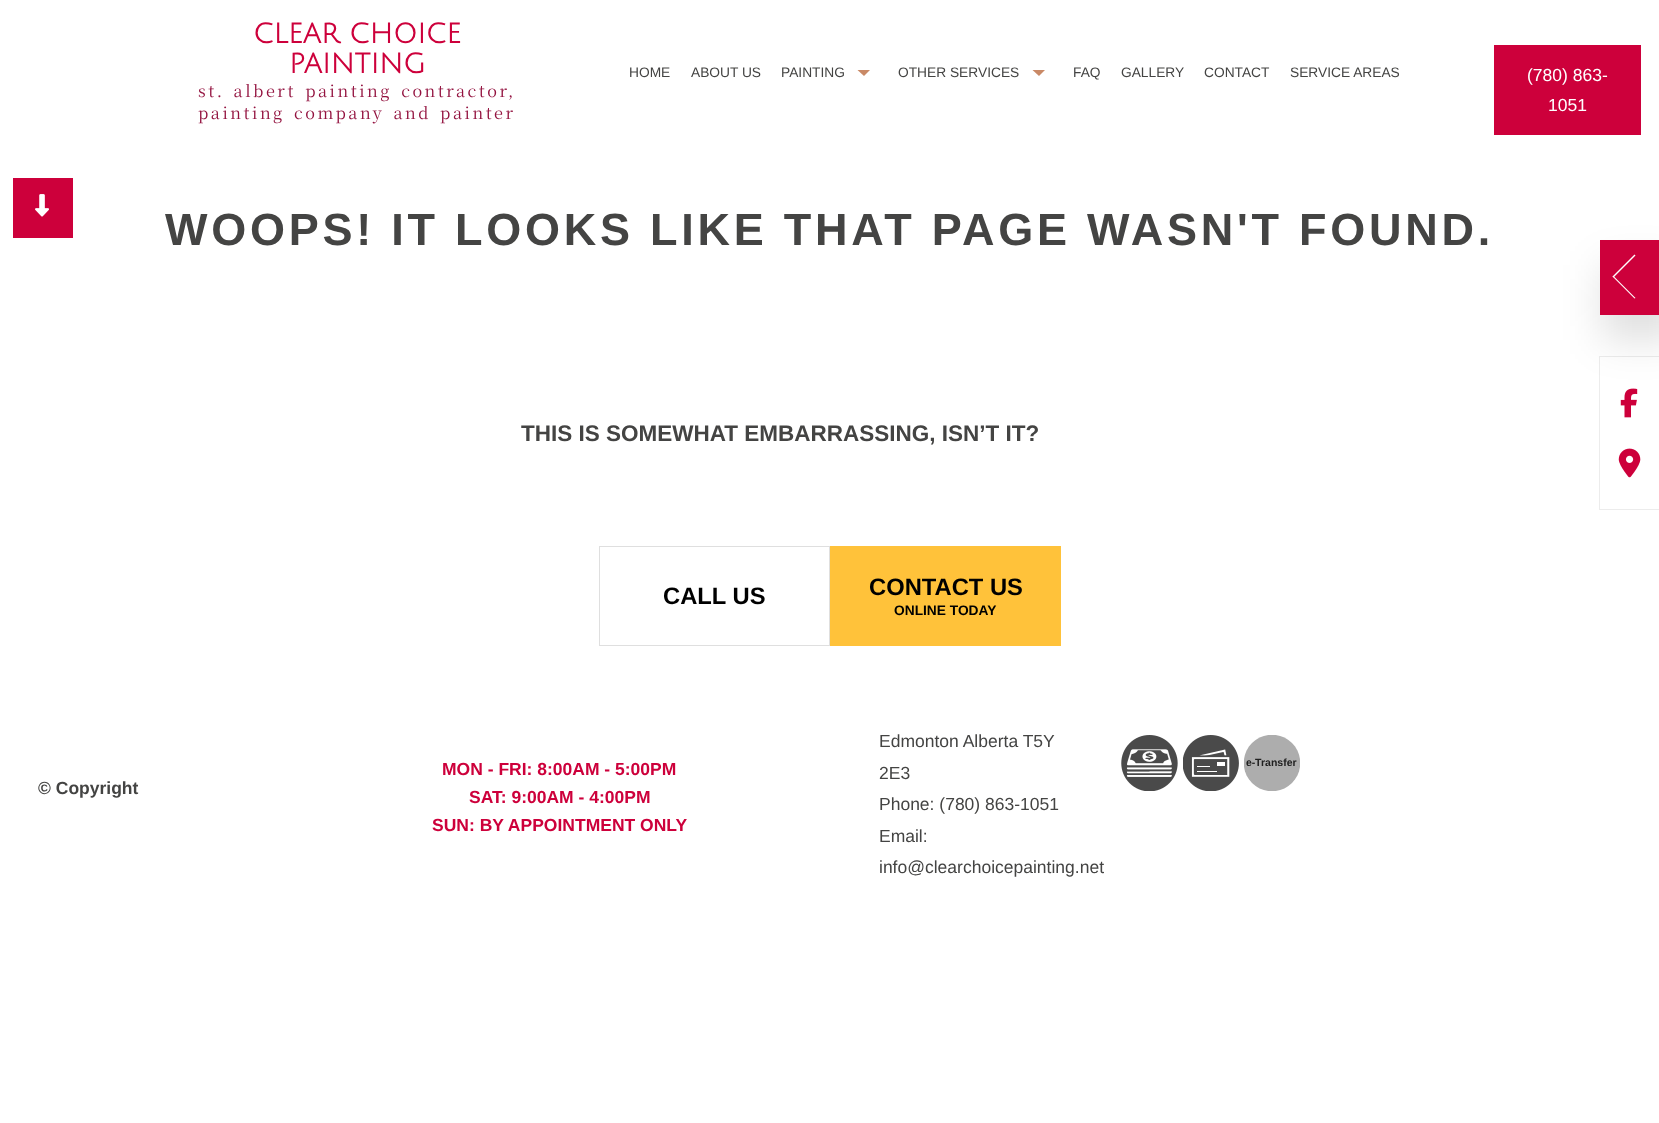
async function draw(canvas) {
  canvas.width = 1659;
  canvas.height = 1123;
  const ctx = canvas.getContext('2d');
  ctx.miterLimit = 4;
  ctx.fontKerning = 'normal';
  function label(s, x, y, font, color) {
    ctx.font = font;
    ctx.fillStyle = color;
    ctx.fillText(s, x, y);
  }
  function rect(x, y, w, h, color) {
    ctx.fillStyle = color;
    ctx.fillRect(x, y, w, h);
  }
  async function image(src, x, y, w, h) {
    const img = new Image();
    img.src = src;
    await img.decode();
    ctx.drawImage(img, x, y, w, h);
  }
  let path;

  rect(0, 0, 1659, 1123, '#fff');
  label('CLEAR CHOICE', 253, 43, 'bold 27.5px Julius Sans One', '#cd003b');
  label('PAINTING', 289, 73, 'bold 27.5px Julius Sans One', '#cd003b');
  ctx.letterSpacing = '2.5px';
  ctx.wordSpacing = '2.5px';
  label('st. albert painting contractor,', 198, 97, '200 16.25px Noto Serif SC', '#93123f');
  label('painting company and painter', 198, 119, '200 16.25px Noto Serif SC', '#93123f');
  ctx.letterSpacing = '0px';
  ctx.wordSpacing = '0px';
  label('HOME', 629, 77, '13.75px Arimo', '#444443');
  label('ABOUT US', 691, 77, '13.75px Arimo', '#444443');
  label('PAINTING', 781, 77, '13.75px Arimo', '#444443');
  ctx.fillStyle = '#c98966';
  path = new Path2D('M857.5 70H870L864 76Z');
  ctx.fill(path);
  label('OTHER SERVICES', 898, 77, '13.75px Arimo', '#444443');
  ctx.fillStyle = '#c98966';
  path = new Path2D('M1032.5 70H1045L1039 76Z');
  ctx.fill(path);
  label('FAQ', 1073, 77, '13.75px Arimo', '#444443');
  label('GALLERY', 1121, 77, '13.75px Arimo', '#444443');
  label('CONTACT', 1204, 77, '13.75px Arimo', '#444443');
  label('SERVICE AREAS', 1290, 77, '13.75px Arimo', '#444443');
  rect(1494, 45, 147, 90, '#cd003b');
  label('(780) 863-', 1527, 81, '17.5px Arimo', '#fff');
  label('1051', 1548, 111, '17.5px Arimo', '#fff');
  ctx.strokeStyle = '#ececec';
  ctx.strokeRect(1599.5, 356.5, 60, 153);
  await image('assets/img1.png', 1620, 388, 18, 30);
  await image('assets/img2.png', 1618, 448, 23, 30);
  rect(13, 178, 60, 60, '#cd003b');
  await image('assets/img3.png', 35, 194, 14, 23);
  ctx.letterSpacing = '3.75px';
  label('WOOPS! IT LOOKS LIKE THAT PAGE WASN\'T FOUND.', 165, 245, 'bold 45px Arimo', '#444443');
  ctx.letterSpacing = '0px';
  label('THIS IS SOMEWHAT EMBARRASSING, ISN’T IT?', 521, 441, 'bold 22.5px Arimo', '#444443');
  ctx.fillStyle = '#00000021';
  ctx.filter = 'blur(20px)';
  ctx.beginPath();
  ctx.rect(1603, 265, 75, 75);
  ctx.fill();
  ctx.filter = 'none';
  rect(1600, 240, 59, 75, '#cd003b');
  ctx.fillStyle = '#fff';
  path = new Path2D('M1612.5 276.5L1634.5 254.5L1635.5 255.5L1613.5 277.5Z');
  ctx.fill(path);
  path = new Path2D('M1612.5 276.5L1613.5 276L1635.5 298L1634.5 298.5Z');
  ctx.fill(path);
  ctx.strokeStyle = '#dfdfdf';
  ctx.strokeRect(599.5, 546.5, 230, 99);
  label('CALL US', 663, 604, 'bold 23.75px Arimo', '#000');
  rect(830, 546, 231, 100, '#ffc23a');
  label('CONTACT US', 869, 595, 'bold 23.75px Arimo', '#000');
  label('ONLINE TODAY', 894, 615, 'bold 13.75px Arimo', '#000');
  label('© Copyright', 38, 794, 'bold 17.5px Arimo', '#444443');
  label('MON - FRI: 8:00AM - 5:00PM', 442, 775, 'bold 17.5px Arimo', '#cd003b');
  label('SAT: 9:00AM - 4:00PM', 469, 803, 'bold 17.5px Arimo', '#cd003b');
  label('SUN: BY APPOINTMENT ONLY', 432, 831, 'bold 17.5px Arimo', '#cd003b');
  label('Edmonton Alberta T5Y', 879, 747, '17.5px Arimo', '#444443');
  label('2E3', 879, 779, '17.5px Arimo', '#444443');
  label('Phone: (780) 863-1051', 879, 810, '17.5px Arimo', '#444443');
  label('Email:', 879, 842, '17.5px Arimo', '#444443');
  label('info@clearchoicepainting.net', 879, 873, '17.5px Arimo', '#444443');
  await image('assets/img4.png', 1121, 735, 57, 56);
  await image('assets/img5.png', 1183, 735, 56, 56);
  ctx.save();
  ctx.beginPath();
  ctx.rect(1244, 735, 56, 56);
  ctx.clip();
  ctx.fillStyle = '#adadad';
  path = new Path2D('M1252 743C1263 732 1281 732 1292 743C1303 754 1303 772 1292 783C1281 794 1263 794 1252 783C1241 772 1241 754 1252 743Z');
  ctx.fill(path);
  ctx.restore();
  label('e-', 1246, 766, 'bold 10.5px Liberation Sans', '#202020');
  ctx.letterSpacing = '-1px';
  label('T', 1255, 766, 'bold 10.5px Liberation Sans', '#202020');
  ctx.letterSpacing = '0px';
  label('ransfer', 1261, 766, 'bold 10.5px Liberation Sans', '#202020');
}

draw(document.querySelector('canvas'));
